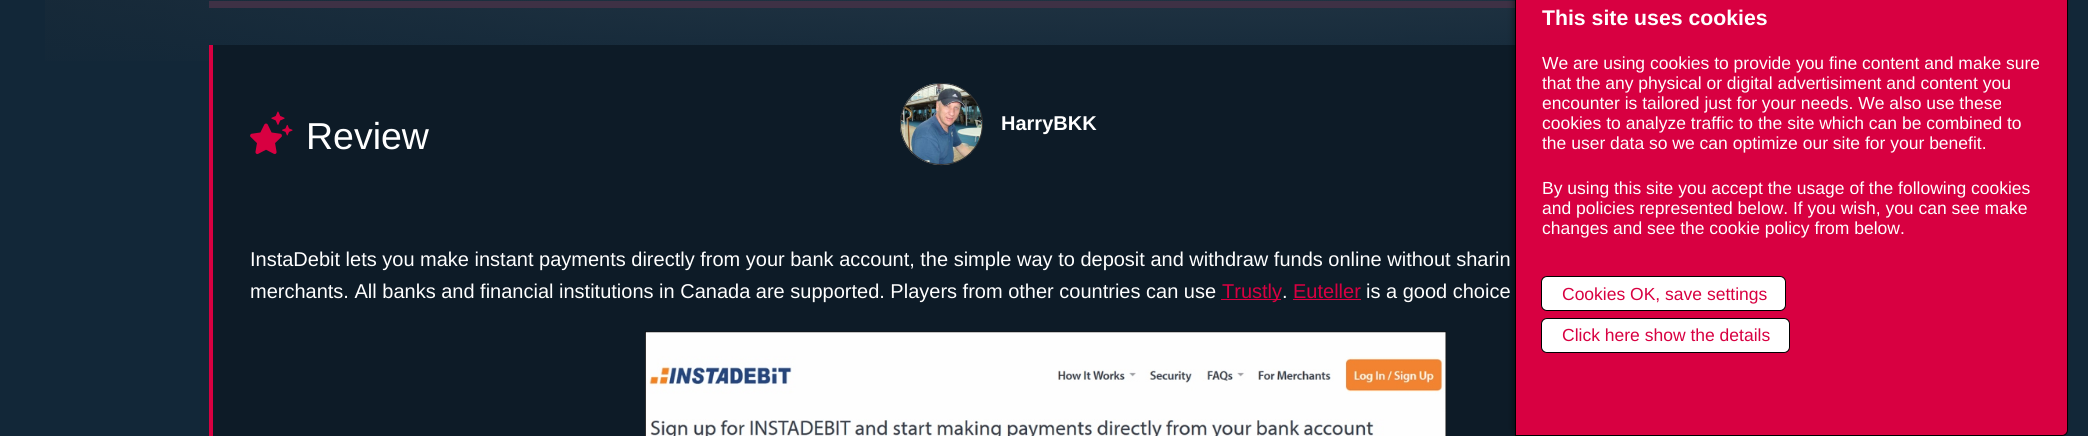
#include <cairo/cairo.h>
#include <math.h>
#include <stddef.h>

typedef struct { double x, y; const char *s; } line_t;
typedef struct { double x, y, w, h; unsigned color; } box_t;
static cairo_t *cr;

static void rgb(unsigned color)
{
	cairo_set_source_rgb(cr, (color >> 16) / 255.0, (color >> 8 & 255) / 255.0, (color & 255) / 255.0);
}

static void rrect(double x, double y, double w, double h, double r)
{
	cairo_new_sub_path(cr);
	cairo_arc(cr, x + w - r, y + h - r, r, 0, M_PI / 2);
	cairo_arc(cr, x + r, y + h - r, r, M_PI / 2, M_PI);
	cairo_arc(cr, x + r, y + r, r, M_PI, 1.5 * M_PI);
	cairo_arc(cr, x + w - r, y + r, r, 1.5 * M_PI, 2 * M_PI);
	cairo_close_path(cr);
}

static void soft_shadow(double x, double y, double w, double h, double r, double blur, double alpha)
{
	cairo_push_group_with_content(cr, CAIRO_CONTENT_ALPHA);
	cairo_set_operator(cr, CAIRO_OPERATOR_SOURCE);
	for (int i = 15; i >= -15 && fmin(w, h) + blur * i / 3 > 0; i -= 2) {
		double e = blur * i / 6;
		cairo_set_source_rgba(cr, 0, 0, 0, alpha * erfc((i - 1) / 8.5) / 2);
		rrect(x - e, y - e, w + 2 * e, h + 2 * e, fmax(0, fmin(r + e + blur * .6, fmin(w, h) / 2 + e)));
		cairo_fill(cr);
	}
	cairo_pattern_t *soft = cairo_pop_group(cr);
	cairo_mask(cr, soft);
	cairo_pattern_destroy(soft);
}

static void image(const char *path, double x, double y, double w, double h)
{
	cairo_surface_t *image = cairo_image_surface_create_from_png(path);
	cairo_save(cr);
	cairo_set_source_surface(cr, image, x, y);
	cairo_rectangle(cr, x, y, w, h);
	cairo_fill(cr);
	cairo_restore(cr);
	cairo_surface_destroy(image);
}

int main(void) {
	cairo_surface_t *surface = cairo_image_surface_create(CAIRO_FORMAT_RGB24, 2088, 436);
	cr = cairo_create(surface);
	cairo_font_options_t *options = cairo_font_options_create();
	cairo_font_options_set_hint_metrics(options, CAIRO_HINT_METRICS_OFF);
	cairo_font_options_set_hint_style(options, CAIRO_HINT_STYLE_NONE);
	cairo_set_font_options(cr, options);
	cairo_set_miter_limit(cr, 4);
	rgb(0x122738);
	cairo_paint(cr);
	image("img/1.png", 45, 0, 1470, 61);
	{
		static const box_t items[] = {
			{209, 1, 1306, 7, 0x3e3145},
			{213, 45, 1302, 391, 0x0d1b27},
			{209, 45, 4, 391, 0xd80041},
		};
		for (size_t i = 0; i < sizeof items / sizeof *items; i++) {
			rgb(items[i].color);
			cairo_rectangle(cr, items[i].x, items[i].y, items[i].w, items[i].h);
			cairo_fill(cr);
		}
	}
	image("img/2.png", 250, 111, 43, 44);
	image("img/3.png", 900, 82, 83, 84);
	rrect(900.5, 83.5, 82, 81, 40.5);
	rgb(0x333333);
	cairo_set_line_width(cr, 1);
	cairo_stroke(cr);
	rgb(0xd80041);
	cairo_rectangle(cr, 1221, 299, 60, 1);
	cairo_fill(cr);
	cairo_rectangle(cr, 1293, 299, 68, 1);
	cairo_fill(cr);
	image("img/4.png", 645, 331, 802, 105);
	rgb(0x000000);
	soft_shadow(1513, -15, 552, 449, 6, 3, 0.4);
	rgb(0xd80041);
	cairo_new_path(cr);
	cairo_move_to(cr, 1521, -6.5);
	cairo_line_to(cr, 2067.5, -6.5);
	cairo_line_to(cr, 2067.5, 430);
	cairo_curve_to(cr, 2067.5, 433, 2065, 435.5, 2062, 435.5);
	cairo_line_to(cr, 1515.5, 435.5);
	cairo_line_to(cr, 1515.5, -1);
	cairo_curve_to(cr, 1515.5, -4, 1518, -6.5, 1521, -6.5);
	cairo_close_path(cr);
	cairo_fill_preserve(cr);
	rgb(0x000000);
	cairo_stroke(cr);
	rgb(0xffffff);
	rrect(1541.5, 276.5, 244, 34, 5.5);
	cairo_fill_preserve(cr);
	rgb(0x000000);
	cairo_stroke(cr);
	rgb(0xffffff);
	rrect(1541.5, 318.5, 248, 34, 5.5);
	cairo_fill_preserve(cr);
	rgb(0x000000);
	cairo_stroke(cr);
	cairo_select_font_face(cr, "Liberation Sans", CAIRO_FONT_SLANT_NORMAL, CAIRO_FONT_WEIGHT_NORMAL);
	cairo_set_font_size(cr, 37.5);
	rgb(0xffffff);
	cairo_move_to(cr, 306, 149);
	cairo_show_text(cr, "Review");
	cairo_select_font_face(cr, "Liberation Sans", CAIRO_FONT_SLANT_NORMAL, CAIRO_FONT_WEIGHT_BOLD);
	cairo_set_font_size(cr, 20);
	cairo_move_to(cr, 1001, 130);
	cairo_show_text(cr, "HarryBKK");
	cairo_select_font_face(cr, "Liberation Sans", CAIRO_FONT_SLANT_NORMAL, CAIRO_FONT_WEIGHT_NORMAL);
	cairo_move_to(cr, 250, 266);
	cairo_show_text(cr, "InstaDebit lets you make instant payments directly from your bank account, the simple way to deposit and withdraw funds online without sharin");
	cairo_move_to(cr, 250, 298);
	cairo_show_text(cr, "merchants. All banks and financial institutions in Canada are supported. Players from other countries can use");
	rgb(0xd80041);
	cairo_move_to(cr, 1222, 298);
	cairo_show_text(cr, "Trustly");
	rgb(0xffffff);
	cairo_move_to(cr, 1282, 298);
	cairo_show_text(cr, ".");
	rgb(0xd80041);
	cairo_move_to(cr, 1293, 298);
	cairo_show_text(cr, "Euteller");
	rgb(0xffffff);
	cairo_move_to(cr, 1366, 298);
	cairo_show_text(cr, "is a good choice");
	cairo_select_font_face(cr, "Liberation Sans", CAIRO_FONT_SLANT_NORMAL, CAIRO_FONT_WEIGHT_BOLD);
	cairo_set_font_size(cr, 21.25);
	cairo_move_to(cr, 1542, 25);
	cairo_show_text(cr, "This site uses cookies");
	cairo_select_font_face(cr, "Liberation Sans", CAIRO_FONT_SLANT_NORMAL, CAIRO_FONT_WEIGHT_NORMAL);
	cairo_set_font_size(cr, 17.5);
	{
		static const line_t items[] = {
			{1542, 69, "We are using cookies to provide you fine content and make sure"},
			{1542, 89, "that the any physical or digital advertisiment and content you"},
			{1542, 109, "encounter is tailored just for your needs. We also use these"},
			{1542, 129, "cookies to analyze traffic to the site which can be combined to"},
			{1542, 149, "the user data so we can optimize our site for your benefit."},
			{1542, 194, "By using this site you accept the usage of the following cookies"},
			{1542, 214, "and policies represented below. If you wish, you can see make"},
			{1542, 234, "changes and see the cookie policy from below."},
		};
		for (size_t i = 0; i < sizeof items / sizeof *items; i++) {
			cairo_move_to(cr, items[i].x, items[i].y);
			cairo_show_text(cr, items[i].s);
		}
	}
	rgb(0xd80041);
	cairo_move_to(cr, 1562, 300);
	cairo_show_text(cr, "Cookies OK, save settings");
	cairo_move_to(cr, 1562, 341);
	cairo_show_text(cr, "Click here show the details");
	cairo_surface_write_to_png(surface, "page.png");
	cairo_font_options_destroy(options);
	cairo_destroy(cr);
	cairo_surface_destroy(surface);
	return 0;
}
